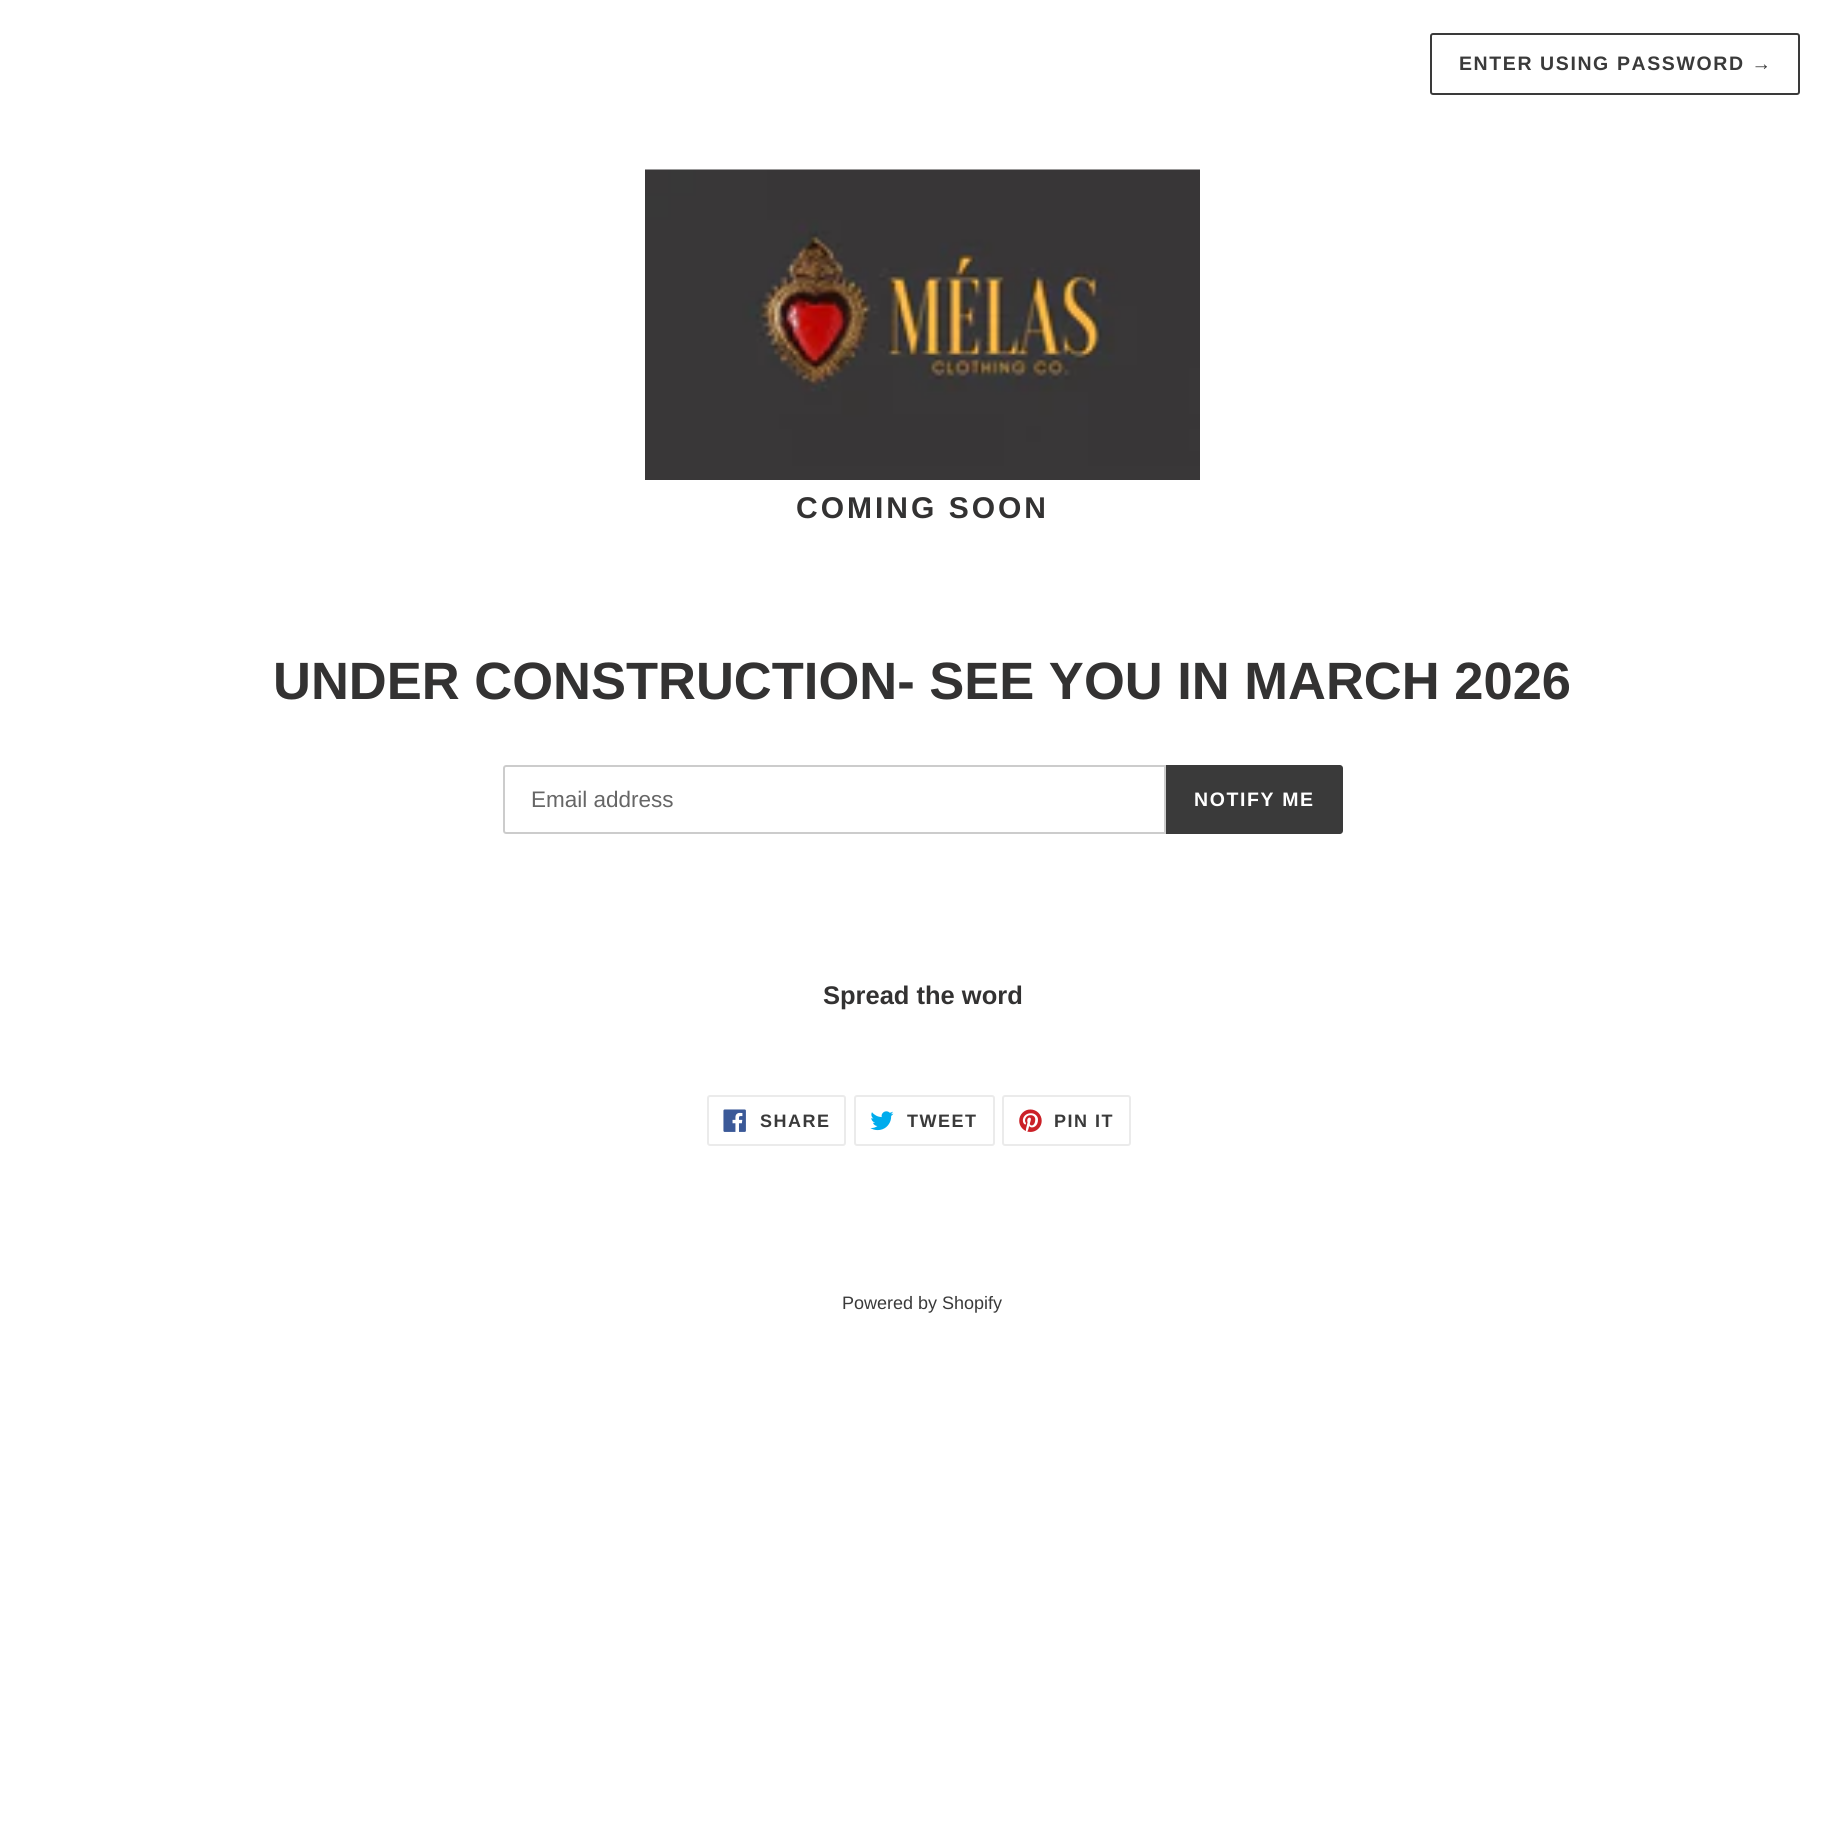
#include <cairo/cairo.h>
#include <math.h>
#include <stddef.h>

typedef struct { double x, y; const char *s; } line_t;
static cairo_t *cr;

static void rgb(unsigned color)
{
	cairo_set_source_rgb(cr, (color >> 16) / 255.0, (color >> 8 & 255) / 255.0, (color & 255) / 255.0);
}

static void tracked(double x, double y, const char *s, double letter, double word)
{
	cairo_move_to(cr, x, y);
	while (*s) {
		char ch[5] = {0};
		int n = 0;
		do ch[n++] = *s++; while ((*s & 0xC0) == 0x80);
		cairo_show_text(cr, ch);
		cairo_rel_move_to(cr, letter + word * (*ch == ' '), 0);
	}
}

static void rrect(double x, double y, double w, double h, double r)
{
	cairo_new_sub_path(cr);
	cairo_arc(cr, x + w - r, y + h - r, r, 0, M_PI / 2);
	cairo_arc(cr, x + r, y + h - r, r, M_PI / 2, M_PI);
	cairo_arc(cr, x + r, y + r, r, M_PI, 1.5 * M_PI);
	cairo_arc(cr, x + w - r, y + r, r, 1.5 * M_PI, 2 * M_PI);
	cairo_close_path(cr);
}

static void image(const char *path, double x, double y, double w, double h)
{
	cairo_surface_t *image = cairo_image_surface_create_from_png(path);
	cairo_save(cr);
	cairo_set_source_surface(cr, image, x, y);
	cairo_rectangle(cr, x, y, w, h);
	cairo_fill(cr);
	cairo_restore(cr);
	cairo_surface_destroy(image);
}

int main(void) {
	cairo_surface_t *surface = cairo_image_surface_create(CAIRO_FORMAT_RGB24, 1845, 1835);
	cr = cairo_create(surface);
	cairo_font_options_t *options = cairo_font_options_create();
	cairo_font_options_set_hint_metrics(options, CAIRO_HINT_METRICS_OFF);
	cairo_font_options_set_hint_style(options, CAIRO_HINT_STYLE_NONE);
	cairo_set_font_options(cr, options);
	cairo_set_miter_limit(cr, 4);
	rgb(0xffffff);
	cairo_paint(cr);
	rrect(1431, 34, 368, 60, 2);
	rgb(0x3a3a3a);
	cairo_stroke(cr);
	image("img/1.png", 645, 169, 555, 311);
	cairo_new_path(cr);
	cairo_move_to(cr, 506, 766);
	cairo_line_to(cr, 1165, 766);
	cairo_line_to(cr, 1165, 833);
	cairo_line_to(cr, 506, 833);
	cairo_curve_to(cr, 505, 833, 504, 832, 504, 831);
	cairo_line_to(cr, 504, 768);
	cairo_curve_to(cr, 504, 767, 505, 766, 506, 766);
	cairo_close_path(cr);
	rgb(0xcccccc);
	cairo_stroke(cr);
	rgb(0x3a3a3a);
	cairo_new_path(cr);
	cairo_move_to(cr, 1166, 765);
	cairo_line_to(cr, 1340, 765);
	cairo_curve_to(cr, 1341.5, 765, 1343, 766.5, 1343, 768);
	cairo_line_to(cr, 1343, 831);
	cairo_curve_to(cr, 1343, 832.5, 1341.5, 834, 1340, 834);
	cairo_line_to(cr, 1166, 834);
	cairo_close_path(cr);
	cairo_fill(cr);
	rrect(708, 1096, 137, 49, 2);
	rgb(0xebebeb);
	cairo_stroke(cr);
	image("img/2.png", 723, 1109, 23, 23);
	rrect(855, 1096, 139, 49, 2);
	cairo_stroke(cr);
	image("img/3.png", 870, 1111, 24, 20);
	rrect(1003, 1096, 127, 49, 2);
	cairo_stroke(cr);
	image("img/4.png", 1019, 1109, 23, 23);
	cairo_select_font_face(cr, "Liberation Sans", CAIRO_FONT_SLANT_NORMAL, CAIRO_FONT_WEIGHT_BOLD);
	cairo_set_font_size(cr, 19.5);
	rgb(0x3a3a3a);
	tracked(1459, 70, "ENTER USING PASSWORD →", 1.6, 0);
	cairo_set_font_size(cr, 30);
	rgb(0x333232);
	tracked(796, 518, "COMING SOON", 3, 0);
	cairo_set_font_size(cr, 52.5);
	cairo_move_to(cr, 273, 699);
	cairo_show_text(cr, "UNDER CONSTRUCTION- SEE YOU IN MARCH 2026");
	cairo_select_font_face(cr, "Liberation Sans", CAIRO_FONT_SLANT_NORMAL, CAIRO_FONT_WEIGHT_NORMAL);
	cairo_set_font_size(cr, 22.5);
	rgb(0x666666);
	cairo_move_to(cr, 531, 807);
	cairo_show_text(cr, "Email address");
	cairo_select_font_face(cr, "Liberation Sans", CAIRO_FONT_SLANT_NORMAL, CAIRO_FONT_WEIGHT_BOLD);
	cairo_set_font_size(cr, 19.5);
	rgb(0xffffff);
	tracked(1194, 806, "NOTIFY ME", 1.6, 0);
	cairo_set_font_size(cr, 25.5);
	rgb(0x333232);
	cairo_move_to(cr, 823, 1004);
	cairo_show_text(cr, "Spread the word");
	cairo_set_font_size(cr, 18);
	rgb(0x3a3a3a);
	{
		static const line_t items[] = {
			{760, 1127, "SHARE"},
			{907, 1127, "TWEET"},
			{1054, 1127, "PIN IT"},
		};
		for (size_t i = 0; i < sizeof items / sizeof *items; i++) {
			tracked(items[i].x, items[i].y, items[i].s, 1.5, 0);
		}
	}
	cairo_select_font_face(cr, "Liberation Sans", CAIRO_FONT_SLANT_NORMAL, CAIRO_FONT_WEIGHT_NORMAL);
	cairo_move_to(cr, 842, 1309);
	cairo_show_text(cr, "Powered by Shopify");
	cairo_surface_write_to_png(surface, "page.png");
	cairo_font_options_destroy(options);
	cairo_destroy(cr);
	cairo_surface_destroy(surface);
	return 0;
}
